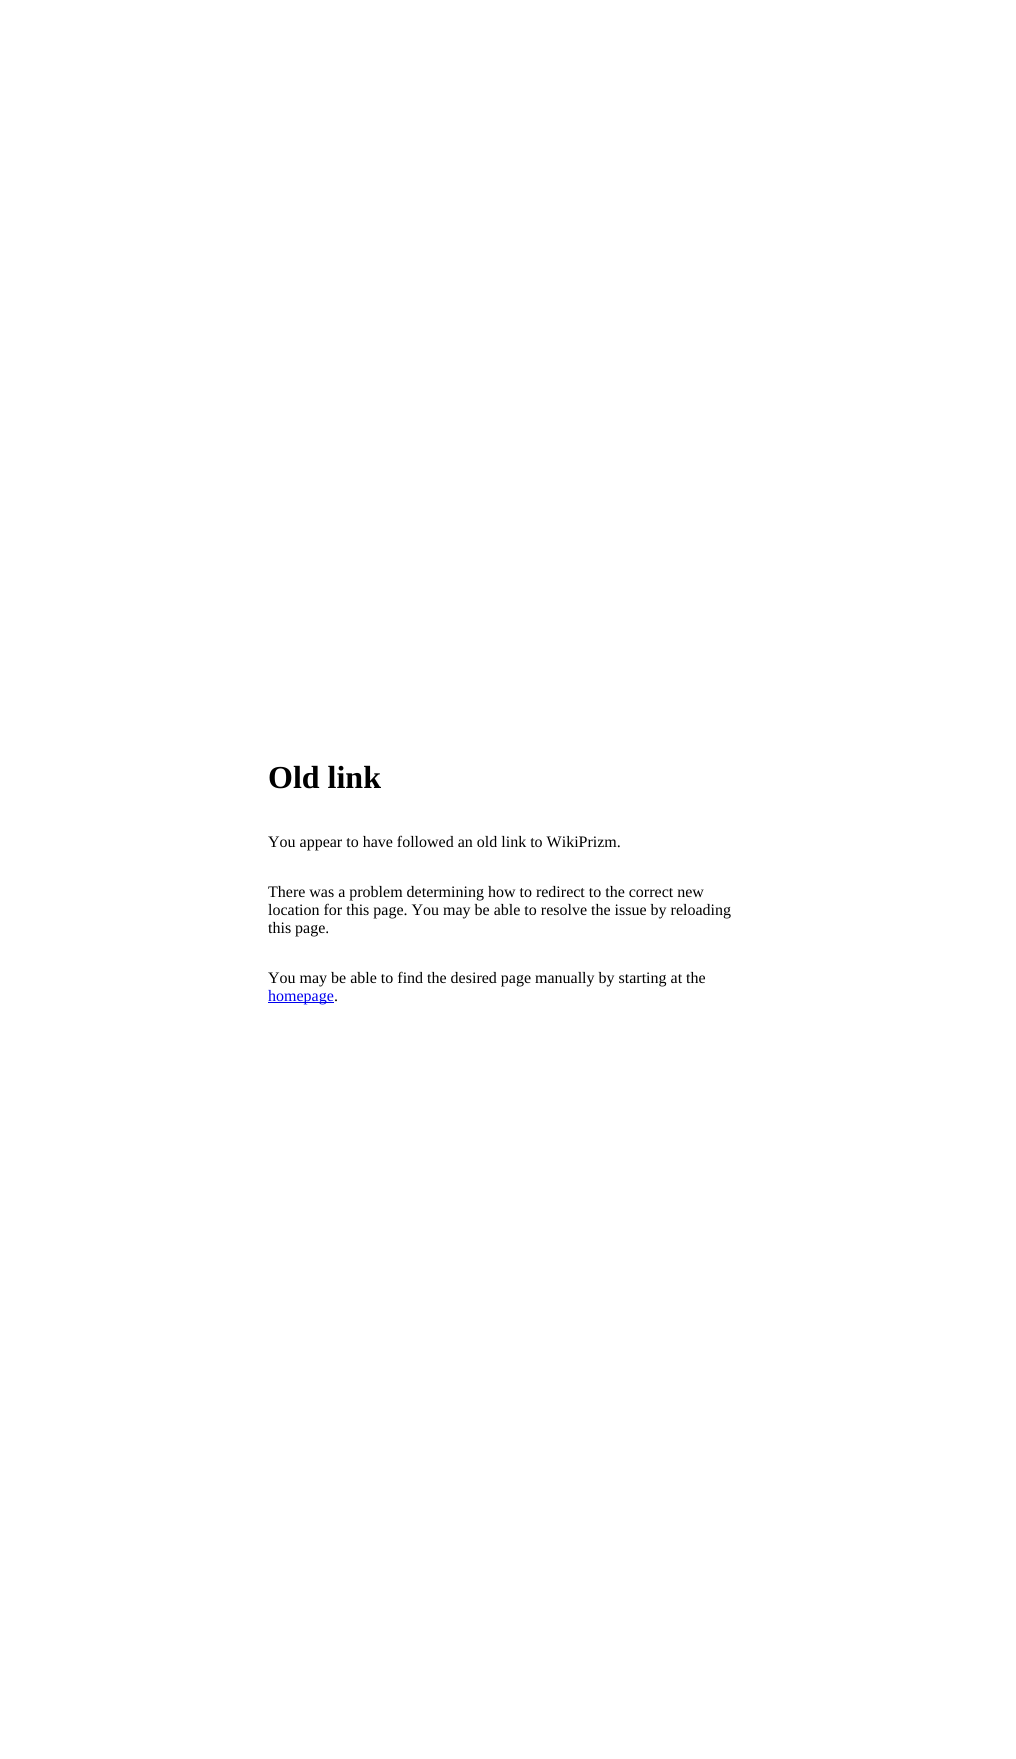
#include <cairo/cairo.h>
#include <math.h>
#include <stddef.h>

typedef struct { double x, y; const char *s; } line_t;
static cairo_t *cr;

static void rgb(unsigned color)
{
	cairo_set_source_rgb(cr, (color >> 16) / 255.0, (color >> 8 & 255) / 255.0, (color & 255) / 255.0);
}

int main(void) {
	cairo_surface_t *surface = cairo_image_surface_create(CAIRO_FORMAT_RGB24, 1016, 1759);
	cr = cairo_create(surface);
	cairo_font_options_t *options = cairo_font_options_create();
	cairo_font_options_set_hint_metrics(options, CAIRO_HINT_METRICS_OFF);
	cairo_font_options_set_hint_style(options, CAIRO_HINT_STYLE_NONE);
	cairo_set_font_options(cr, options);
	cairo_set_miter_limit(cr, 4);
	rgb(0xffffff);
	cairo_paint(cr);
	rgb(0x0000ee);
	cairo_rectangle(cr, 268, 1002, 66, 1);
	cairo_fill(cr);
	cairo_select_font_face(cr, "Liberation Serif", CAIRO_FONT_SLANT_NORMAL, CAIRO_FONT_WEIGHT_BOLD);
	cairo_set_font_size(cr, 32);
	rgb(0x000000);
	cairo_move_to(cr, 268, 788);
	cairo_show_text(cr, "Old link");
	cairo_select_font_face(cr, "Liberation Serif", CAIRO_FONT_SLANT_NORMAL, CAIRO_FONT_WEIGHT_NORMAL);
	cairo_set_font_size(cr, 16);
	{
		static const line_t items[] = {
			{268, 847, "You appear to have followed an old link to WikiPrizm."},
			{268, 897, "There was a problem determining how to redirect to the correct new"},
			{268, 915, "location for this page. You may be able to resolve the issue by reloading"},
			{268, 933, "this page."},
			{268, 983, "You may be able to find the desired page manually by starting at the"},
		};
		for (size_t i = 0; i < sizeof items / sizeof *items; i++) {
			cairo_move_to(cr, items[i].x, items[i].y);
			cairo_show_text(cr, items[i].s);
		}
	}
	rgb(0x0000ee);
	cairo_move_to(cr, 268, 1001);
	cairo_show_text(cr, "homepage");
	rgb(0x000000);
	cairo_move_to(cr, 334, 1001);
	cairo_show_text(cr, ".");
	cairo_surface_write_to_png(surface, "page.png");
	cairo_font_options_destroy(options);
	cairo_destroy(cr);
	cairo_surface_destroy(surface);
	return 0;
}
